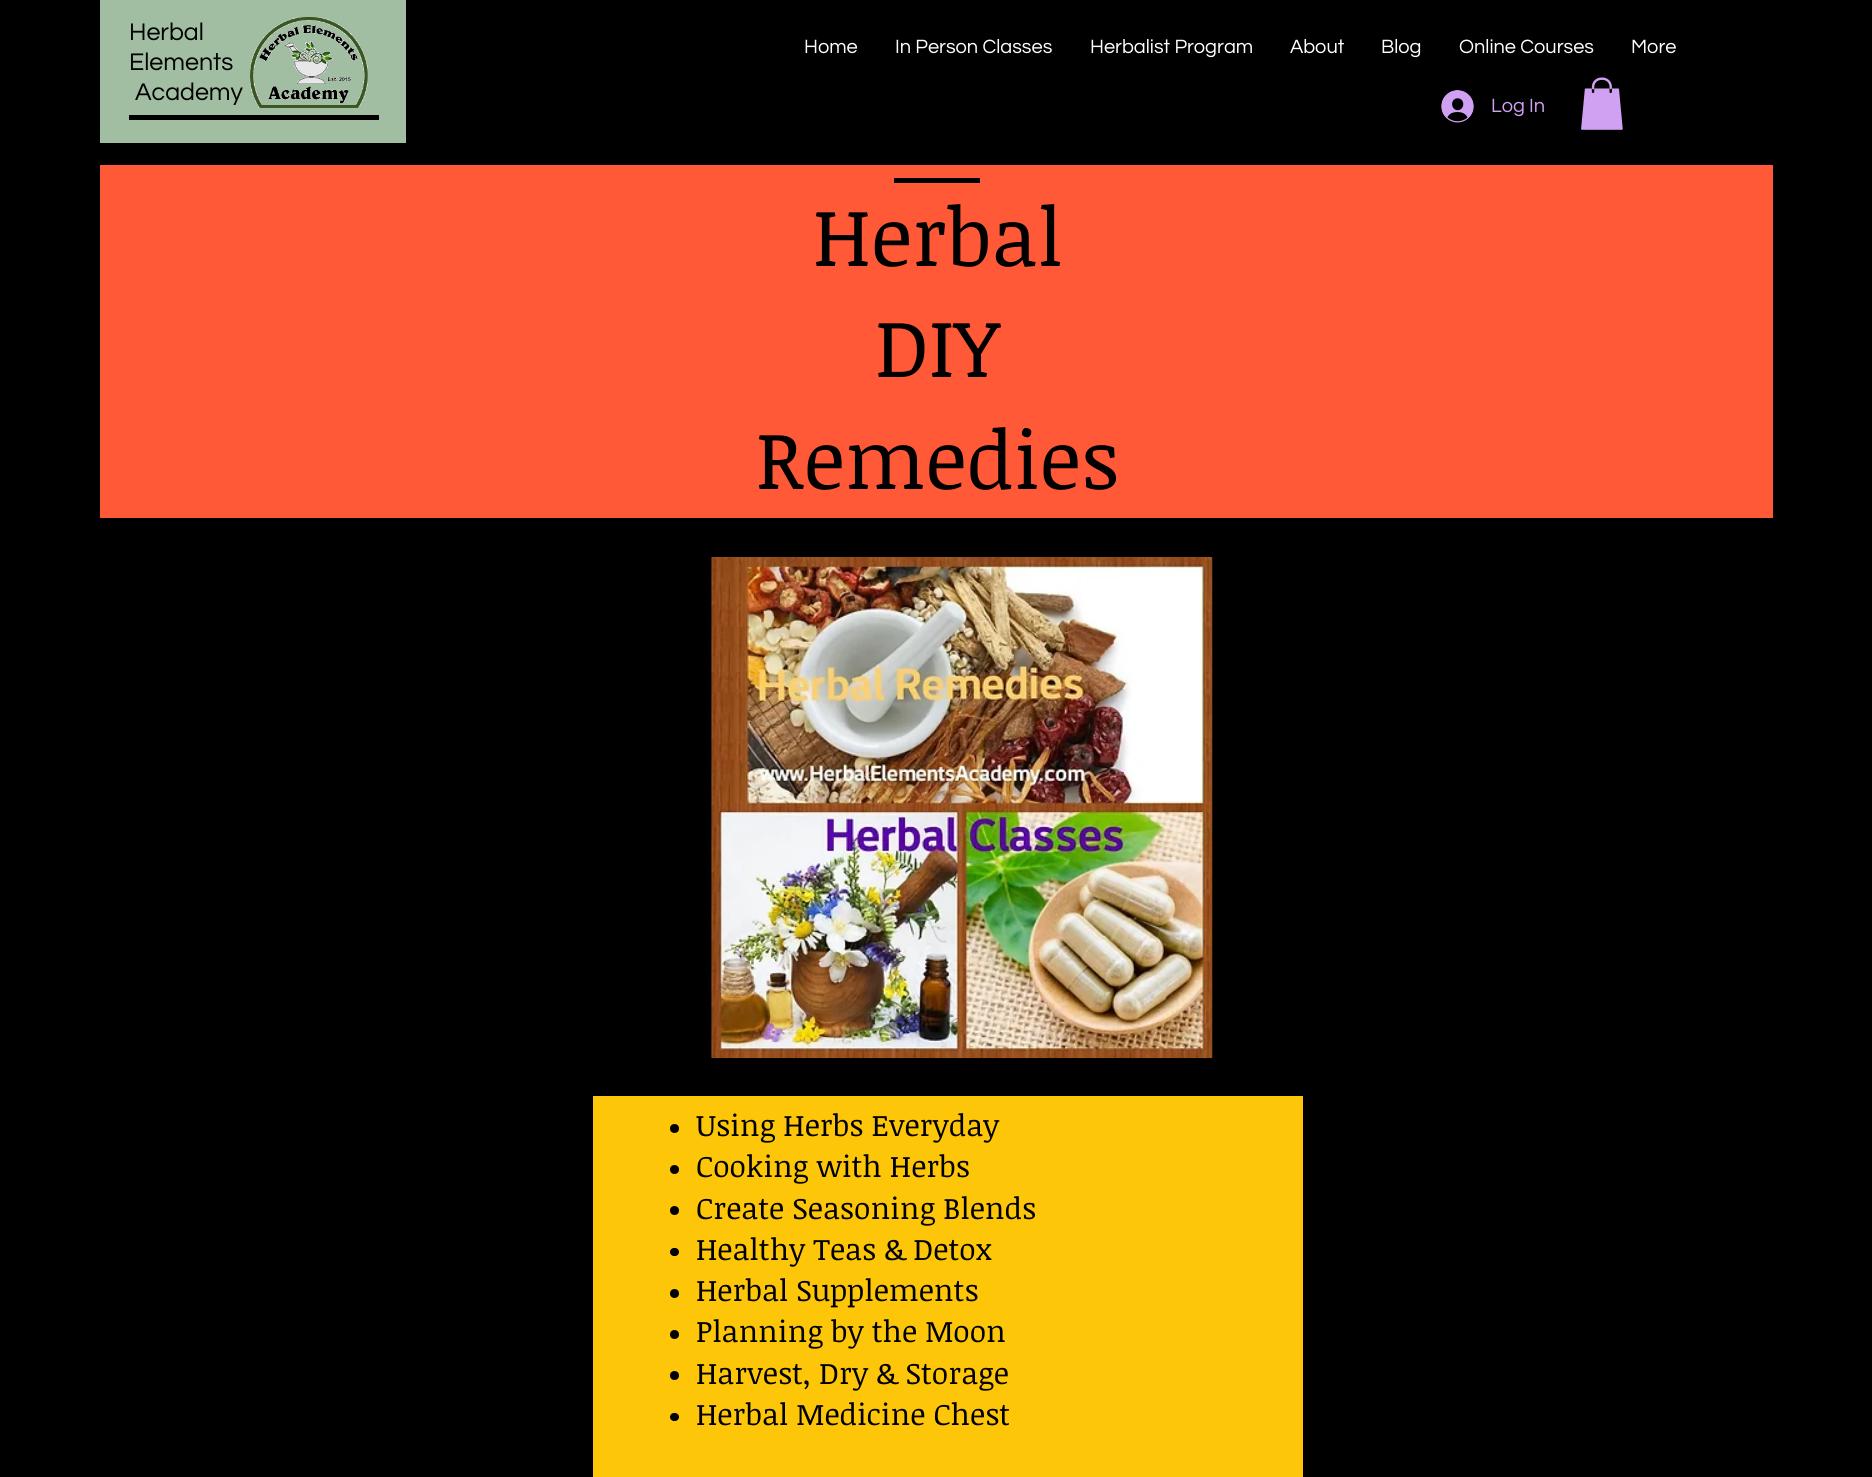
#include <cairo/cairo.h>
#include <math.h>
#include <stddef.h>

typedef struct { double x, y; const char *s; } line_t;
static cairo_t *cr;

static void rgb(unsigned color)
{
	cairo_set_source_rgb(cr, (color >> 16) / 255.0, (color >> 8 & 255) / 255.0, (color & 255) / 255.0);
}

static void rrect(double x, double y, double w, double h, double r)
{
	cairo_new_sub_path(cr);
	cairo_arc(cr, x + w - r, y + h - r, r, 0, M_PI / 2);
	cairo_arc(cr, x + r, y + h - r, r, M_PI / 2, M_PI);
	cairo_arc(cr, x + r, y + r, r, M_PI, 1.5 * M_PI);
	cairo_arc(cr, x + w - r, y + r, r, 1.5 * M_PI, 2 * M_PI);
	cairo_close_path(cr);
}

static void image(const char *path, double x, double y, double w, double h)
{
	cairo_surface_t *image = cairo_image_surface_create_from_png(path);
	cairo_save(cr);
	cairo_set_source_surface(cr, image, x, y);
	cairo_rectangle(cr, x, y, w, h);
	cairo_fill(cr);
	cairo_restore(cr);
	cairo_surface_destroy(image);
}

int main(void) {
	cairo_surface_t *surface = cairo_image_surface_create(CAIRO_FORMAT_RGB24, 1872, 1477);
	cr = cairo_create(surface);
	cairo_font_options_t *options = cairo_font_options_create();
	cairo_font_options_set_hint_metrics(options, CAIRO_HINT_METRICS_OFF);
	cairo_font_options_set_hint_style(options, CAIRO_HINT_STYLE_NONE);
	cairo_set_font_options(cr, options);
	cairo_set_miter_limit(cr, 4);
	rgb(0x000000);
	cairo_paint(cr);
	rgb(0xa1bea2);
	cairo_rectangle(cr, 100, 0, 306, 143);
	cairo_fill(cr);
	image("img/1.png", 250, 17, 118, 91);
	rgb(0x000000);
	cairo_rectangle(cr, 129, 115, 250, 5);
	cairo_fill(cr);
	image("img/2.png", 1441, 90, 33, 33);
	image("img/3.png", 1581, 77, 42, 53);
	rgb(0xff5937);
	cairo_rectangle(cr, 100, 165, 1673, 353);
	cairo_fill(cr);
	rgb(0x000000);
	cairo_rectangle(cr, 894, 178, 86, 5);
	cairo_fill(cr);
	image("img/4.png", 711, 557, 502, 502);
	rgb(0xfdc609);
	cairo_rectangle(cr, 593, 1096, 710, 381);
	cairo_fill(cr);
	rgb(0x000000);
	cairo_arc(cr, 674.5, 1128.5, 4.5, 0, 2 * M_PI);
	cairo_fill(cr);
	cairo_arc(cr, 674.5, 1169.5, 4.5, 0, 2 * M_PI);
	cairo_fill(cr);
	cairo_arc(cr, 674.5, 1210.5, 4.5, 0, 2 * M_PI);
	cairo_fill(cr);
	rrect(670, 1248, 9, 8, 4);
	cairo_fill(cr);
	cairo_arc(cr, 674.5, 1293.5, 4.5, 0, 2 * M_PI);
	cairo_fill(cr);
	cairo_arc(cr, 674.5, 1334.5, 4.5, 0, 2 * M_PI);
	cairo_fill(cr);
	cairo_arc(cr, 674.5, 1375.5, 4.5, 0, 2 * M_PI);
	cairo_fill(cr);
	rrect(670, 1413, 9, 8, 4);
	cairo_fill(cr);
	cairo_select_font_face(cr, "Questrial", CAIRO_FONT_SLANT_NORMAL, CAIRO_FONT_WEIGHT_NORMAL);
	cairo_set_font_size(cr, 25);
	{
		static const line_t items[] = {
			{129, 40, "Herbal"},
			{129, 70, "Elements"},
			{135, 100, "Academy"},
		};
		for (size_t i = 0; i < sizeof items / sizeof *items; i++) {
			cairo_move_to(cr, items[i].x, items[i].y);
			cairo_show_text(cr, items[i].s);
		}
	}
	cairo_set_font_size(cr, 20);
	rgb(0xffffff);
	{
		static const line_t items[] = {
			{804, 53, "Home"},
			{895, 53, "In Person Classes"},
			{1090, 53, "Herbalist Program"},
			{1290, 53, "About"},
			{1381, 53, "Blog"},
			{1459, 53, "Online Courses"},
			{1631, 53, "More"},
		};
		for (size_t i = 0; i < sizeof items / sizeof *items; i++) {
			cairo_move_to(cr, items[i].x, items[i].y);
			cairo_show_text(cr, items[i].s);
		}
	}
	rgb(0xd0a1f2);
	cairo_move_to(cr, 1491, 112);
	cairo_show_text(cr, "Log In");
	cairo_select_font_face(cr, "Noticia Text", CAIRO_FONT_SLANT_NORMAL, CAIRO_FONT_WEIGHT_NORMAL);
	cairo_set_font_size(cr, 81.25);
	rgb(0x000000);
	{
		static const line_t items[] = {
			{813, 266, "Herbal"},
			{875, 377, "DIY"},
			{756, 489, "Remedies"},
		};
		for (size_t i = 0; i < sizeof items / sizeof *items; i++) {
			cairo_move_to(cr, items[i].x, items[i].y);
			cairo_show_text(cr, items[i].s);
		}
	}
	cairo_set_font_size(cr, 30);
	{
		static const line_t items[] = {
			{696, 1136, "Using Herbs Everyday"},
			{696, 1177, "Cooking with Herbs"},
			{696, 1219, "Create Seasoning Blends"},
			{696, 1260, "Healthy Teas & Detox"},
			{696, 1301, "Herbal Supplements"},
			{696, 1342, "Planning by the Moon"},
			{696, 1384, "Harvest, Dry & Storage"},
			{696, 1425, "Herbal Medicine Chest"},
		};
		for (size_t i = 0; i < sizeof items / sizeof *items; i++) {
			cairo_move_to(cr, items[i].x, items[i].y);
			cairo_show_text(cr, items[i].s);
		}
	}
	cairo_surface_write_to_png(surface, "page.png");
	cairo_font_options_destroy(options);
	cairo_destroy(cr);
	cairo_surface_destroy(surface);
	return 0;
}
